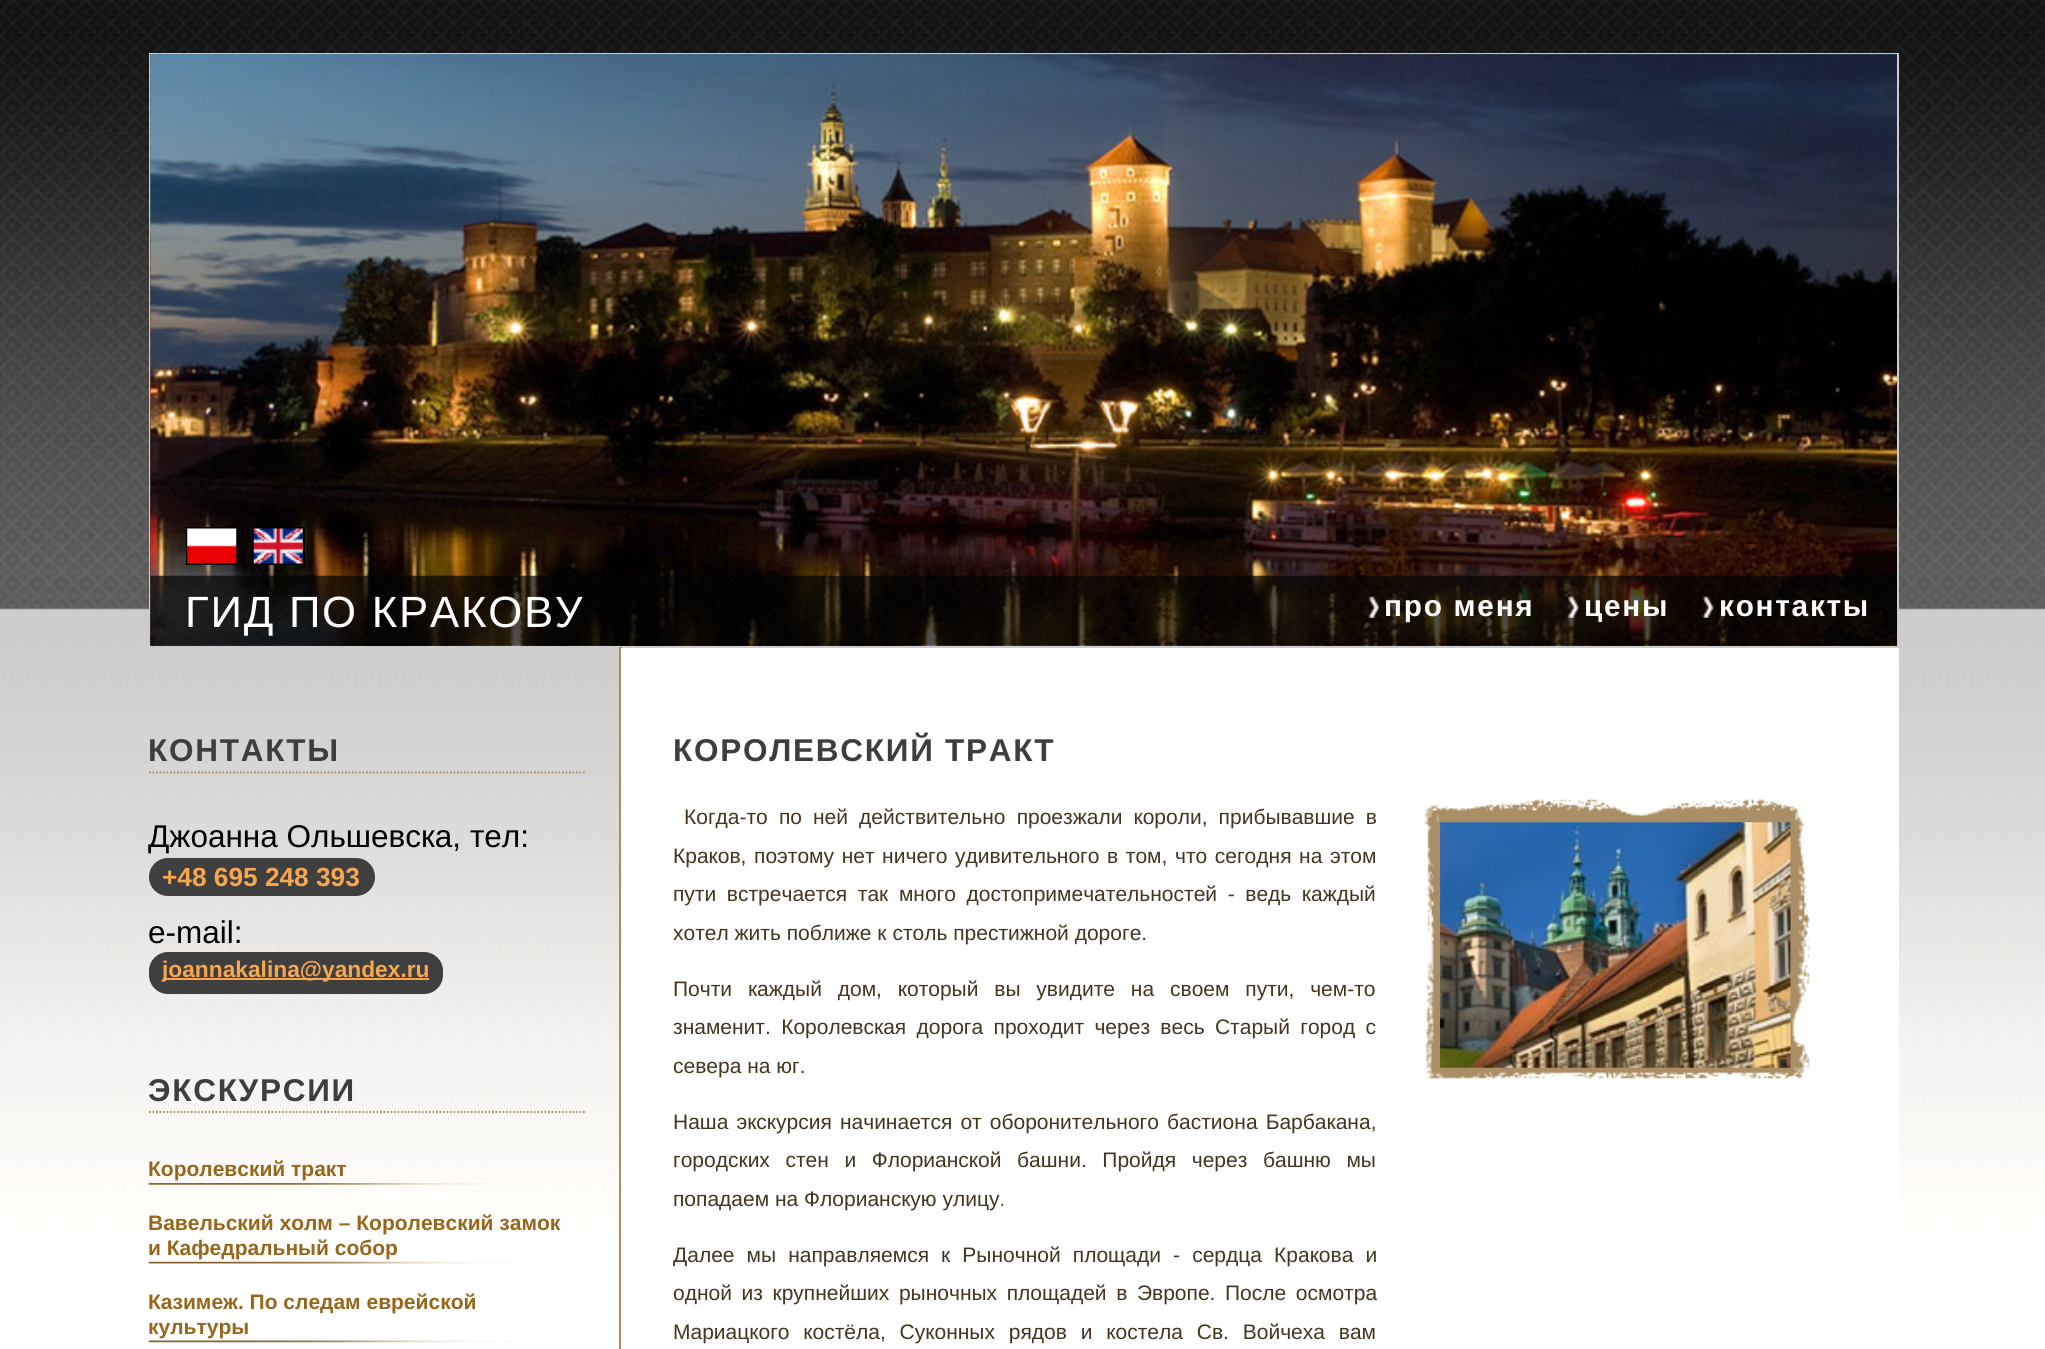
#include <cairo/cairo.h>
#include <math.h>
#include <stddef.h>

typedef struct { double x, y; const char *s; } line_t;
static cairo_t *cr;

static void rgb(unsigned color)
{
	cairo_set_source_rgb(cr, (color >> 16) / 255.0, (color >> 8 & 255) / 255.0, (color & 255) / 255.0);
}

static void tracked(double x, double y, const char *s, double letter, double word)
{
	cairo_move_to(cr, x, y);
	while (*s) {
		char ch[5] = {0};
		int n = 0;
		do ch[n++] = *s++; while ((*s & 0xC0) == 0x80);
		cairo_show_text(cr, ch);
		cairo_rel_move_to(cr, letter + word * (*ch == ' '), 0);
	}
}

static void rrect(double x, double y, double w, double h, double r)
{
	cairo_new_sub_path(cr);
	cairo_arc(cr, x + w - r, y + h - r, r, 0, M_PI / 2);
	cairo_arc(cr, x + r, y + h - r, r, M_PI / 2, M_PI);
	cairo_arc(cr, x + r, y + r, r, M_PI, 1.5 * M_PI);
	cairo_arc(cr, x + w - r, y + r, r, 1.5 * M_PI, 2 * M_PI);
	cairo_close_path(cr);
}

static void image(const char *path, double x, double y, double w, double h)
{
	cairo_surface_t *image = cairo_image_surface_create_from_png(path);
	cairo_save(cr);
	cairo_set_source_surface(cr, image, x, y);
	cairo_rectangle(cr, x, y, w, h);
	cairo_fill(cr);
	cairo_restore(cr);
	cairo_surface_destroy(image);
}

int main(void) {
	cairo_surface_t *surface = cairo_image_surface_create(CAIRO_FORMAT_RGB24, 2045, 1349);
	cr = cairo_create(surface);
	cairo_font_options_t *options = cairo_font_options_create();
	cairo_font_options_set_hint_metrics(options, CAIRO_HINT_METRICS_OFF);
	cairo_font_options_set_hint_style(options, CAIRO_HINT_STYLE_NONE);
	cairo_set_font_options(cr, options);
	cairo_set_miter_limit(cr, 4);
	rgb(0xffffff);
	cairo_paint(cr);
	image("img/1.png", 0, 0, 2045, 1231);
	cairo_rectangle(cr, 150, 54, 1748, 593);
	rgb(0xcdcccc);
	cairo_stroke(cr);
	image("img/2.png", 150, 54, 1747, 592);
	image("img/3.png", 150, 54, 1747, 592);
	image("img/4.png", 150, 54, 1747, 592);
	image("img/5.png", 150, 54, 1747, 592);
	cairo_rectangle(cr, 187, 528, 50, 36);
	rgb(0x000000);
	cairo_stroke(cr);
	cairo_rectangle(cr, 253, 528, 51, 36);
	cairo_stroke(cr);
	image("img/6.png", 187, 528, 50, 36);
	image("img/7.png", 253, 528, 50, 36);
	image("img/8.png", 150, 575, 1747, 71);
	image("img/9.png", 1368, 596, 11, 22);
	image("img/10.png", 1568, 596, 11, 22);
	image("img/11.png", 1702, 596, 12, 22);
	rgb(0xaa8c62);
	cairo_rectangle(cr, 619, 647, 3, 702);
	cairo_fill(cr);
	cairo_new_path(cr);
	cairo_move_to(cr, 149, 772.5);
	cairo_line_to(cr, 586, 772.5);
	cairo_set_line_width(cr, 1.8);
	cairo_set_dash(cr, (double[]){1.75, 1.75}, 2, 0);
	cairo_stroke(cr);
	rgb(0x3f3f3f);
	rrect(150, 859, 224, 36, 18);
	cairo_fill_preserve(cr);
	cairo_set_line_width(cr, 2);
	cairo_set_dash(cr, NULL, 0, 0);
	cairo_stroke(cr);
	rrect(150, 953, 292, 40, 18);
	cairo_fill_preserve(cr);
	cairo_stroke(cr);
	rgb(0xf9a74e);
	cairo_rectangle(cr, 163, 978, 266, 2);
	cairo_fill(cr);
	cairo_new_path(cr);
	cairo_move_to(cr, 149, 1112);
	cairo_line_to(cr, 586, 1112);
	rgb(0xaa8c62);
	cairo_set_line_width(cr, 1.8);
	cairo_set_dash(cr, (double[]){1.75, 1.75}, 2, 0);
	cairo_stroke(cr);
	image("img/12.png", 148, 1183, 387, 2);
	image("img/13.png", 148, 1261, 387, 3);
	image("img/14.png", 148, 1340, 387, 3);
	rgb(0xffffff);
	cairo_rectangle(cr, 621, 648, 1278, 701);
	cairo_fill(cr);
	image("img/15.png", 1424, 799, 386, 280);
	image("img/16.png", 1440, 822, 351, 246);
	cairo_select_font_face(cr, "Liberation Sans", CAIRO_FONT_SLANT_NORMAL, CAIRO_FONT_WEIGHT_NORMAL);
	cairo_set_font_size(cr, 43.75);
	tracked(185, 627, "ГИД ПО КРАКОВУ", 1.75, 0);
	cairo_select_font_face(cr, "Liberation Sans", CAIRO_FONT_SLANT_NORMAL, CAIRO_FONT_WEIGHT_BOLD);
	cairo_set_font_size(cr, 29.75);
	{
		static const line_t items[] = {
			{1384, 616, "про меня"},
			{1584, 616, "цены"},
			{1719, 616, "контакты"},
		};
		for (size_t i = 0; i < sizeof items / sizeof *items; i++) {
			tracked(items[i].x, items[i].y, items[i].s, 1.75, 0);
		}
	}
	cairo_set_font_size(cr, 31.5);
	rgb(0x3e3e3e);
	tracked(148, 761, "КОНТАКТЫ", 1.75, 0);
	cairo_select_font_face(cr, "Liberation Sans", CAIRO_FONT_SLANT_NORMAL, CAIRO_FONT_WEIGHT_NORMAL);
	rgb(0x000000);
	cairo_move_to(cr, 148, 847);
	cairo_show_text(cr, "Джоанна Ольшевскa, тел:");
	cairo_select_font_face(cr, "Liberation Sans", CAIRO_FONT_SLANT_NORMAL, CAIRO_FONT_WEIGHT_BOLD);
	cairo_set_font_size(cr, 26.25);
	rgb(0xf9a74e);
	cairo_move_to(cr, 162, 886);
	cairo_show_text(cr, "+48 695 248 393");
	cairo_select_font_face(cr, "Liberation Sans", CAIRO_FONT_SLANT_NORMAL, CAIRO_FONT_WEIGHT_NORMAL);
	cairo_set_font_size(cr, 31.5);
	rgb(0x000000);
	cairo_move_to(cr, 148, 943);
	cairo_show_text(cr, "e-mail:");
	cairo_select_font_face(cr, "Liberation Sans", CAIRO_FONT_SLANT_NORMAL, CAIRO_FONT_WEIGHT_BOLD);
	cairo_set_font_size(cr, 22.75);
	rgb(0xf9a74e);
	cairo_move_to(cr, 162, 977);
	cairo_show_text(cr, "joannakalina@yandex.ru");
	cairo_set_font_size(cr, 31.5);
	rgb(0x3e3e3e);
	tracked(148, 1101, "ЭКСКУРСИИ", 1.75, 0);
	cairo_set_font_size(cr, 21);
	rgb(0x98661b);
	{
		static const line_t items[] = {
			{148, 1176, "Королевский тракт"},
			{148, 1230, "Вавельский холм – Королевский замок"},
			{148, 1255, "и Кафедральный собор"},
			{148, 1309, "Казимеж. По следам еврейской"},
			{148, 1334, "культуры"},
		};
		for (size_t i = 0; i < sizeof items / sizeof *items; i++) {
			cairo_move_to(cr, items[i].x, items[i].y);
			cairo_show_text(cr, items[i].s);
		}
	}
	cairo_set_font_size(cr, 31.5);
	rgb(0x3e3e3e);
	tracked(673, 761, "КОРОЛЕВСКИЙ ТРАКТ", 1.75, 0);
	cairo_select_font_face(cr, "Liberation Sans", CAIRO_FONT_SLANT_NORMAL, CAIRO_FONT_WEIGHT_NORMAL);
	cairo_set_font_size(cr, 21);
	rgb(0x423521);
	tracked(684, 824, "Когда-то по ней действительно проезжали короли, прибывавшие в", 0, 5.25);
	tracked(673, 863, "Краков, поэтому нет ничего удивительного в том, что сегодня на этом", 0, 1.75);
	tracked(673, 901, "пути встречается так много достопримечательностей - ведь каждый", 0, 4.75);
	cairo_move_to(cr, 673, 940);
	cairo_show_text(cr, "хотел жить поближе к столь престижной дороге.");
	tracked(673, 996, "Почти каждый дом, который вы увидите на своем пути, чем-то", 0, 10);
	tracked(673, 1034, "знаменит. Королевская дорога проходит через весь Старый город с", 0, 4.5);
	cairo_move_to(cr, 673, 1073);
	cairo_show_text(cr, "севера на юг.");
	tracked(673, 1129, "Наша экскурсия начинается от оборонительного бастиона Барбакана,", 0, 2.25);
	tracked(673, 1167, "городских стен и Флорианской башни. Пройдя через башню мы", 0, 9.75);
	cairo_move_to(cr, 673, 1206);
	cairo_show_text(cr, "попадаем на Флорианскую улицу.");
	tracked(673, 1262, "Далее мы направляемся к Рыночной площади - сердца Кракова и", 0, 6.25);
	tracked(673, 1300, "одной из крупнейших рыночных площадей в Эвропе. После осмотра", 0, 3.75);
	tracked(673, 1339, "Мариацкого костёла, Суконных рядов и костела Св. Войчеха вам", 0, 8);
	cairo_surface_write_to_png(surface, "page.png");
	cairo_font_options_destroy(options);
	cairo_destroy(cr);
	cairo_surface_destroy(surface);
	return 0;
}
